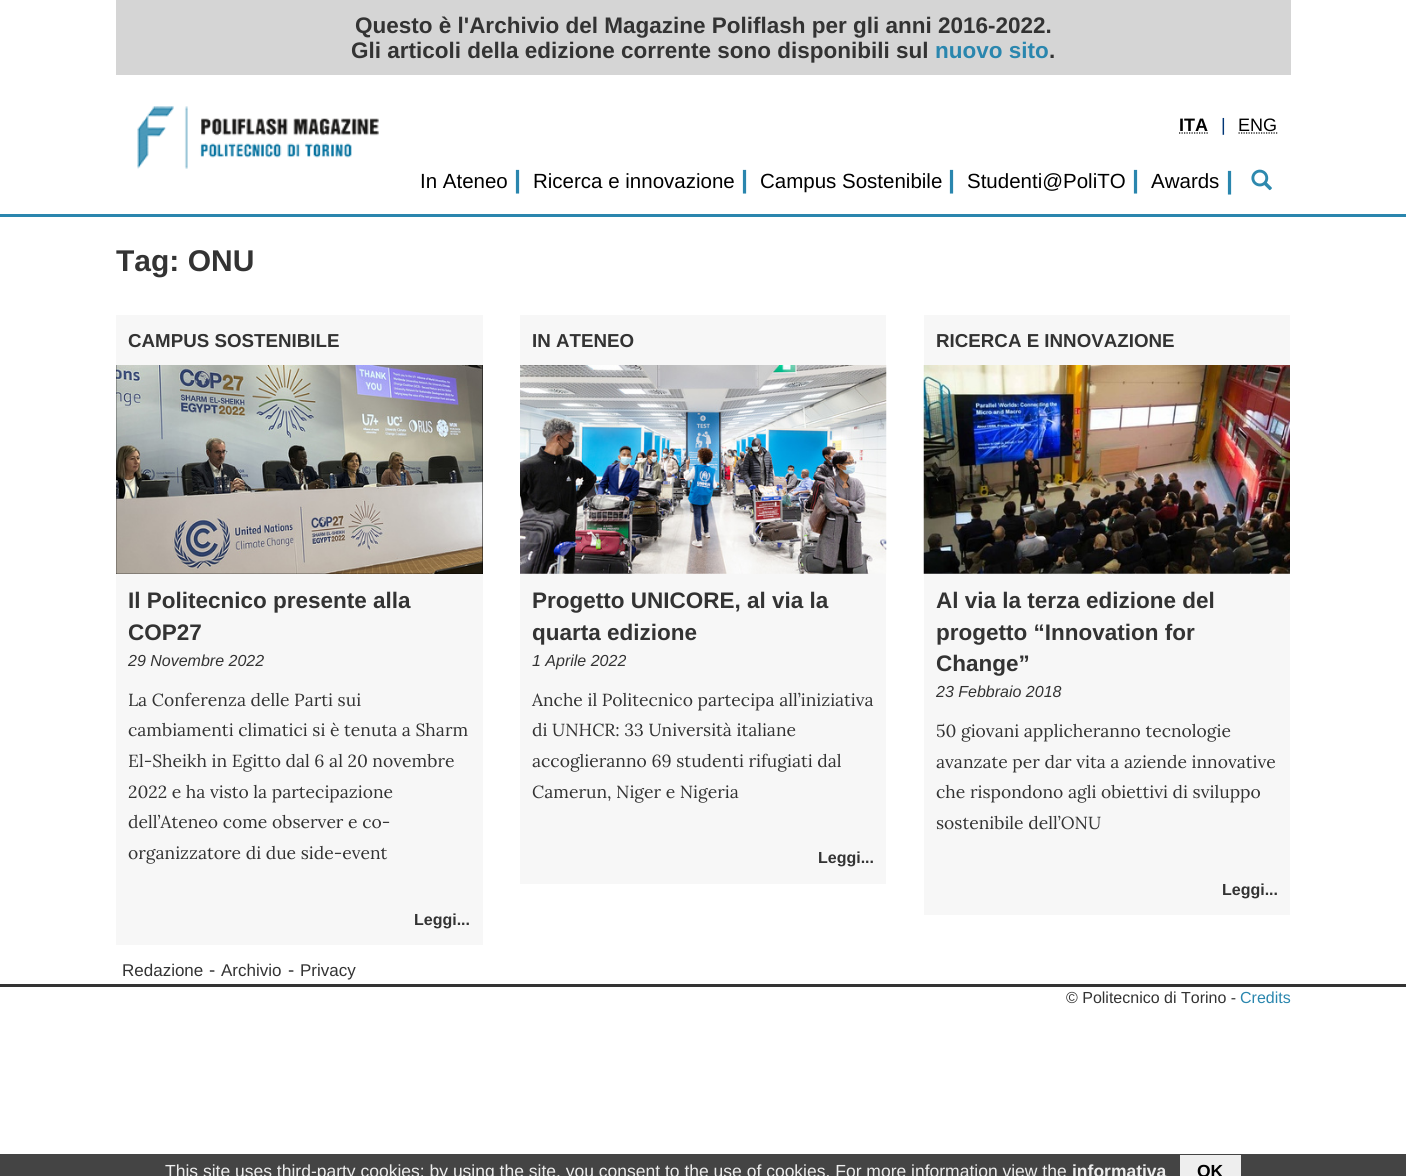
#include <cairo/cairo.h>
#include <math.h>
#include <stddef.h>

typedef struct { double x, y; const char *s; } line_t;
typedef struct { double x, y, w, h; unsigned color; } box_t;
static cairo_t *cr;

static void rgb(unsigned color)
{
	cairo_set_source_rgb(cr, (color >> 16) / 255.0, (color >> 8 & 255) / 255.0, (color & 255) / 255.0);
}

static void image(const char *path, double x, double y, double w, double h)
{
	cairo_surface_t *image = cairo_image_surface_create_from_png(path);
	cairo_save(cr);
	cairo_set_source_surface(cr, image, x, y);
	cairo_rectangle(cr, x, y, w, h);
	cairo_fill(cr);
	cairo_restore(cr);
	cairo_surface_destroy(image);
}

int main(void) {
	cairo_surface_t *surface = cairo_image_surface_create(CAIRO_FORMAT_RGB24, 1406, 1176);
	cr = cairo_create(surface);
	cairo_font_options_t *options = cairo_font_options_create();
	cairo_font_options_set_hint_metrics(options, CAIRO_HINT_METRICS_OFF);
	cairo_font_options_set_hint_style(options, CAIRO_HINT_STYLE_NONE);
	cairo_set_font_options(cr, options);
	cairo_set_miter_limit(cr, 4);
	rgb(0xffffff);
	cairo_paint(cr);
	rgb(0x2a86ae);
	cairo_rectangle(cr, 0, 214, 1406, 3);
	cairo_fill(cr);
	rgb(0xd5d5d5);
	cairo_rectangle(cr, 116, 0, 1175, 75);
	cairo_fill(cr);
	image("img/1.png", 137, 106, 242, 63);
	cairo_new_path(cr);
	cairo_move_to(cr, 1179, 133);
	cairo_line_to(cr, 1208.5, 133);
	rgb(0x000000);
	cairo_set_line_width(cr, 1.2);
	cairo_set_dash(cr, (double[]){1.25, 1.25}, 2, 0);
	cairo_stroke(cr);
	cairo_new_path(cr);
	cairo_move_to(cr, 1238.5, 133);
	cairo_line_to(cr, 1278, 133);
	cairo_stroke(cr);
	image("img/2.png", 1251, 169, 21, 22);
	rgb(0xf7f7f7);
	cairo_rectangle(cr, 116, 315, 367, 630);
	cairo_fill(cr);
	rgb(0x000000);
	cairo_rectangle(cr, 116, 365, 367, 209);
	cairo_fill(cr);
	image("img/3.png", 116, 365, 367, 209);
	rgb(0xf7f7f7);
	cairo_rectangle(cr, 520, 315, 366, 569);
	cairo_fill(cr);
	image("img/4.png", 520, 365, 367, 209);
	cairo_rectangle(cr, 924, 315, 366, 600);
	cairo_fill(cr);
	image("img/5.png", 923, 365, 367, 209);
	{
		static const box_t items[] = {
			{0, 984, 1406, 3, 0x333333},
			{0, 1154, 1406, 22, 0x444444},
			{1180, 1155, 61, 21, 0xeeeeee},
		};
		for (size_t i = 0; i < sizeof items / sizeof *items; i++) {
			rgb(items[i].color);
			cairo_rectangle(cr, items[i].x, items[i].y, items[i].w, items[i].h);
			cairo_fill(cr);
		}
	}
	cairo_select_font_face(cr, "Liberation Sans", CAIRO_FONT_SLANT_NORMAL, CAIRO_FONT_WEIGHT_BOLD);
	cairo_set_font_size(cr, 22.5);
	rgb(0x333333);
	cairo_move_to(cr, 355, 33);
	cairo_show_text(cr, "Questo è l'Archivio del Magazine Poliflash per gli anni 2016-2022.");
	cairo_move_to(cr, 351, 58);
	cairo_show_text(cr, "Gli articoli della edizione corrente sono disponibili sul");
	rgb(0x2a86ae);
	cairo_move_to(cr, 935, 58);
	cairo_show_text(cr, "nuovo sito");
	rgb(0x333333);
	cairo_move_to(cr, 1049, 58);
	cairo_show_text(cr, ".");
	cairo_set_font_size(cr, 18);
	rgb(0x000000);
	cairo_move_to(cr, 1179, 131);
	cairo_show_text(cr, "ITA");
	cairo_select_font_face(cr, "Liberation Sans", CAIRO_FONT_SLANT_NORMAL, CAIRO_FONT_WEIGHT_NORMAL);
	rgb(0x003576);
	cairo_move_to(cr, 1221, 131);
	cairo_show_text(cr, "|");
	rgb(0x000000);
	cairo_move_to(cr, 1238, 131);
	cairo_show_text(cr, "ENG");
	cairo_set_font_size(cr, 20.5);
	cairo_move_to(cr, 420, 188);
	cairo_show_text(cr, "In Ateneo");
	cairo_select_font_face(cr, "Liberation Sans", CAIRO_FONT_SLANT_NORMAL, CAIRO_FONT_WEIGHT_BOLD);
	cairo_set_font_size(cr, 25);
	rgb(0x2a86ae);
	cairo_move_to(cr, 514, 188);
	cairo_show_text(cr, "|");
	cairo_select_font_face(cr, "Liberation Sans", CAIRO_FONT_SLANT_NORMAL, CAIRO_FONT_WEIGHT_NORMAL);
	cairo_set_font_size(cr, 20.5);
	rgb(0x000000);
	cairo_move_to(cr, 533, 188);
	cairo_show_text(cr, "Ricerca e innovazione");
	cairo_select_font_face(cr, "Liberation Sans", CAIRO_FONT_SLANT_NORMAL, CAIRO_FONT_WEIGHT_BOLD);
	cairo_set_font_size(cr, 25);
	rgb(0x2a86ae);
	cairo_move_to(cr, 741, 188);
	cairo_show_text(cr, "|");
	cairo_select_font_face(cr, "Liberation Sans", CAIRO_FONT_SLANT_NORMAL, CAIRO_FONT_WEIGHT_NORMAL);
	cairo_set_font_size(cr, 20.5);
	rgb(0x000000);
	cairo_move_to(cr, 760, 188);
	cairo_show_text(cr, "Campus Sostenibile");
	cairo_select_font_face(cr, "Liberation Sans", CAIRO_FONT_SLANT_NORMAL, CAIRO_FONT_WEIGHT_BOLD);
	cairo_set_font_size(cr, 25);
	rgb(0x2a86ae);
	cairo_move_to(cr, 948, 188);
	cairo_show_text(cr, "|");
	cairo_select_font_face(cr, "Liberation Sans", CAIRO_FONT_SLANT_NORMAL, CAIRO_FONT_WEIGHT_NORMAL);
	cairo_set_font_size(cr, 20.5);
	rgb(0x000000);
	cairo_move_to(cr, 967, 188);
	cairo_show_text(cr, "Studenti@PoliTO");
	cairo_select_font_face(cr, "Liberation Sans", CAIRO_FONT_SLANT_NORMAL, CAIRO_FONT_WEIGHT_BOLD);
	cairo_set_font_size(cr, 25);
	rgb(0x2a86ae);
	cairo_move_to(cr, 1132, 188);
	cairo_show_text(cr, "|");
	cairo_select_font_face(cr, "Liberation Sans", CAIRO_FONT_SLANT_NORMAL, CAIRO_FONT_WEIGHT_NORMAL);
	cairo_set_font_size(cr, 20.5);
	rgb(0x000000);
	cairo_move_to(cr, 1151, 188);
	cairo_show_text(cr, "Awards");
	cairo_select_font_face(cr, "Liberation Sans", CAIRO_FONT_SLANT_NORMAL, CAIRO_FONT_WEIGHT_BOLD);
	cairo_set_font_size(cr, 25);
	rgb(0x2a86ae);
	cairo_move_to(cr, 1226, 189);
	cairo_show_text(cr, "|");
	cairo_set_font_size(cr, 30);
	rgb(0x333333);
	cairo_move_to(cr, 116, 271);
	cairo_show_text(cr, "Tag: ONU");
	cairo_set_font_size(cr, 18.75);
	cairo_move_to(cr, 128, 347);
	cairo_show_text(cr, "CAMPUS SOSTENIBILE");
	cairo_set_font_size(cr, 22.5);
	cairo_move_to(cr, 128, 608);
	cairo_show_text(cr, "Il Politecnico presente alla");
	cairo_move_to(cr, 128, 640);
	cairo_show_text(cr, "COP27");
	cairo_select_font_face(cr, "Liberation Sans", CAIRO_FONT_SLANT_ITALIC, CAIRO_FONT_WEIGHT_NORMAL);
	cairo_set_font_size(cr, 16);
	cairo_move_to(cr, 128, 666);
	cairo_show_text(cr, "29 Novembre 2022");
	cairo_select_font_face(cr, "Lora", CAIRO_FONT_SLANT_NORMAL, CAIRO_FONT_WEIGHT_NORMAL);
	cairo_set_font_size(cr, 17.5);
	{
		static const line_t items[] = {
			{128, 706, "La Conferenza delle Parti sui"},
			{128, 736, "cambiamenti climatici si è tenuta a Sharm"},
			{128, 767, "El-Sheikh in Egitto dal 6 al 20 novembre"},
			{128, 798, "2022 e ha visto la partecipazione"},
			{128, 828, "dell’Ateneo come observer e co-"},
			{128, 859, "organizzatore di due side-event"},
		};
		for (size_t i = 0; i < sizeof items / sizeof *items; i++) {
			cairo_move_to(cr, items[i].x, items[i].y);
			cairo_show_text(cr, items[i].s);
		}
	}
	cairo_select_font_face(cr, "Liberation Sans", CAIRO_FONT_SLANT_NORMAL, CAIRO_FONT_WEIGHT_BOLD);
	cairo_set_font_size(cr, 16);
	cairo_move_to(cr, 414, 925);
	cairo_show_text(cr, "Leggi...");
	cairo_set_font_size(cr, 18.75);
	cairo_move_to(cr, 532, 347);
	cairo_show_text(cr, "IN ATENEO");
	cairo_set_font_size(cr, 22.5);
	cairo_move_to(cr, 532, 608);
	cairo_show_text(cr, "Progetto UNICORE, al via la");
	cairo_move_to(cr, 532, 640);
	cairo_show_text(cr, "quarta edizione");
	cairo_select_font_face(cr, "Liberation Sans", CAIRO_FONT_SLANT_ITALIC, CAIRO_FONT_WEIGHT_NORMAL);
	cairo_set_font_size(cr, 16);
	cairo_move_to(cr, 532, 666);
	cairo_show_text(cr, "1 Aprile 2022");
	cairo_select_font_face(cr, "Lora", CAIRO_FONT_SLANT_NORMAL, CAIRO_FONT_WEIGHT_NORMAL);
	cairo_set_font_size(cr, 17.5);
	{
		static const line_t items[] = {
			{532, 706, "Anche il Politecnico partecipa all’iniziativa"},
			{532, 736, "di UNHCR: 33 Università italiane"},
			{532, 767, "accoglieranno 69 studenti rifugiati dal"},
			{532, 798, "Camerun, Niger e Nigeria"},
		};
		for (size_t i = 0; i < sizeof items / sizeof *items; i++) {
			cairo_move_to(cr, items[i].x, items[i].y);
			cairo_show_text(cr, items[i].s);
		}
	}
	cairo_select_font_face(cr, "Liberation Sans", CAIRO_FONT_SLANT_NORMAL, CAIRO_FONT_WEIGHT_BOLD);
	cairo_set_font_size(cr, 16);
	cairo_move_to(cr, 818, 863);
	cairo_show_text(cr, "Leggi...");
	cairo_set_font_size(cr, 18.75);
	cairo_move_to(cr, 936, 347);
	cairo_show_text(cr, "RICERCA E INNOVAZIONE");
	cairo_set_font_size(cr, 22.5);
	{
		static const line_t items[] = {
			{936, 608, "Al via la terza edizione del"},
			{936, 640, "progetto “Innovation for"},
			{936, 671, "Change”"},
		};
		for (size_t i = 0; i < sizeof items / sizeof *items; i++) {
			cairo_move_to(cr, items[i].x, items[i].y);
			cairo_show_text(cr, items[i].s);
		}
	}
	cairo_select_font_face(cr, "Liberation Sans", CAIRO_FONT_SLANT_ITALIC, CAIRO_FONT_WEIGHT_NORMAL);
	cairo_set_font_size(cr, 16);
	cairo_move_to(cr, 936, 697);
	cairo_show_text(cr, "23 Febbraio 2018");
	cairo_select_font_face(cr, "Lora", CAIRO_FONT_SLANT_NORMAL, CAIRO_FONT_WEIGHT_NORMAL);
	cairo_set_font_size(cr, 17.5);
	{
		static const line_t items[] = {
			{936, 737, "50 giovani applicheranno tecnologie"},
			{936, 768, "avanzate per dar vita a aziende innovative"},
			{936, 798, "che rispondono agli obiettivi di sviluppo"},
			{936, 829, "sostenibile dell’ONU"},
		};
		for (size_t i = 0; i < sizeof items / sizeof *items; i++) {
			cairo_move_to(cr, items[i].x, items[i].y);
			cairo_show_text(cr, items[i].s);
		}
	}
	cairo_select_font_face(cr, "Liberation Sans", CAIRO_FONT_SLANT_NORMAL, CAIRO_FONT_WEIGHT_BOLD);
	cairo_set_font_size(cr, 16);
	cairo_move_to(cr, 1222, 895);
	cairo_show_text(cr, "Leggi...");
	cairo_select_font_face(cr, "Liberation Sans", CAIRO_FONT_SLANT_NORMAL, CAIRO_FONT_WEIGHT_NORMAL);
	cairo_set_font_size(cr, 17);
	cairo_move_to(cr, 122, 976);
	cairo_show_text(cr, "Redazione");
	cairo_set_font_size(cr, 18.75);
	cairo_move_to(cr, 209, 976);
	cairo_show_text(cr, "-");
	cairo_set_font_size(cr, 17);
	cairo_move_to(cr, 221, 976);
	cairo_show_text(cr, "Archivio");
	cairo_set_font_size(cr, 18.75);
	cairo_move_to(cr, 288, 976);
	cairo_show_text(cr, "-");
	cairo_set_font_size(cr, 17);
	cairo_move_to(cr, 300, 976);
	cairo_show_text(cr, "Privacy");
	cairo_set_font_size(cr, 16);
	cairo_move_to(cr, 1066, 1003);
	cairo_show_text(cr, "© Politecnico di Torino -");
	rgb(0x2a86ae);
	cairo_move_to(cr, 1240, 1003);
	cairo_show_text(cr, "Credits");
	cairo_set_font_size(cr, 17.5);
	rgb(0xeeeeee);
	cairo_move_to(cr, 165, 1177);
	cairo_show_text(cr, "This site uses third-party cookies: by using the site, you consent to the use of cookies. For more information view the");
	cairo_select_font_face(cr, "Liberation Sans", CAIRO_FONT_SLANT_NORMAL, CAIRO_FONT_WEIGHT_BOLD);
	cairo_move_to(cr, 1072, 1177);
	cairo_show_text(cr, "informativa");
	rgb(0x000000);
	cairo_move_to(cr, 1197, 1177);
	cairo_show_text(cr, "OK");
	cairo_surface_write_to_png(surface, "page.png");
	cairo_font_options_destroy(options);
	cairo_destroy(cr);
	cairo_surface_destroy(surface);
	return 0;
}
